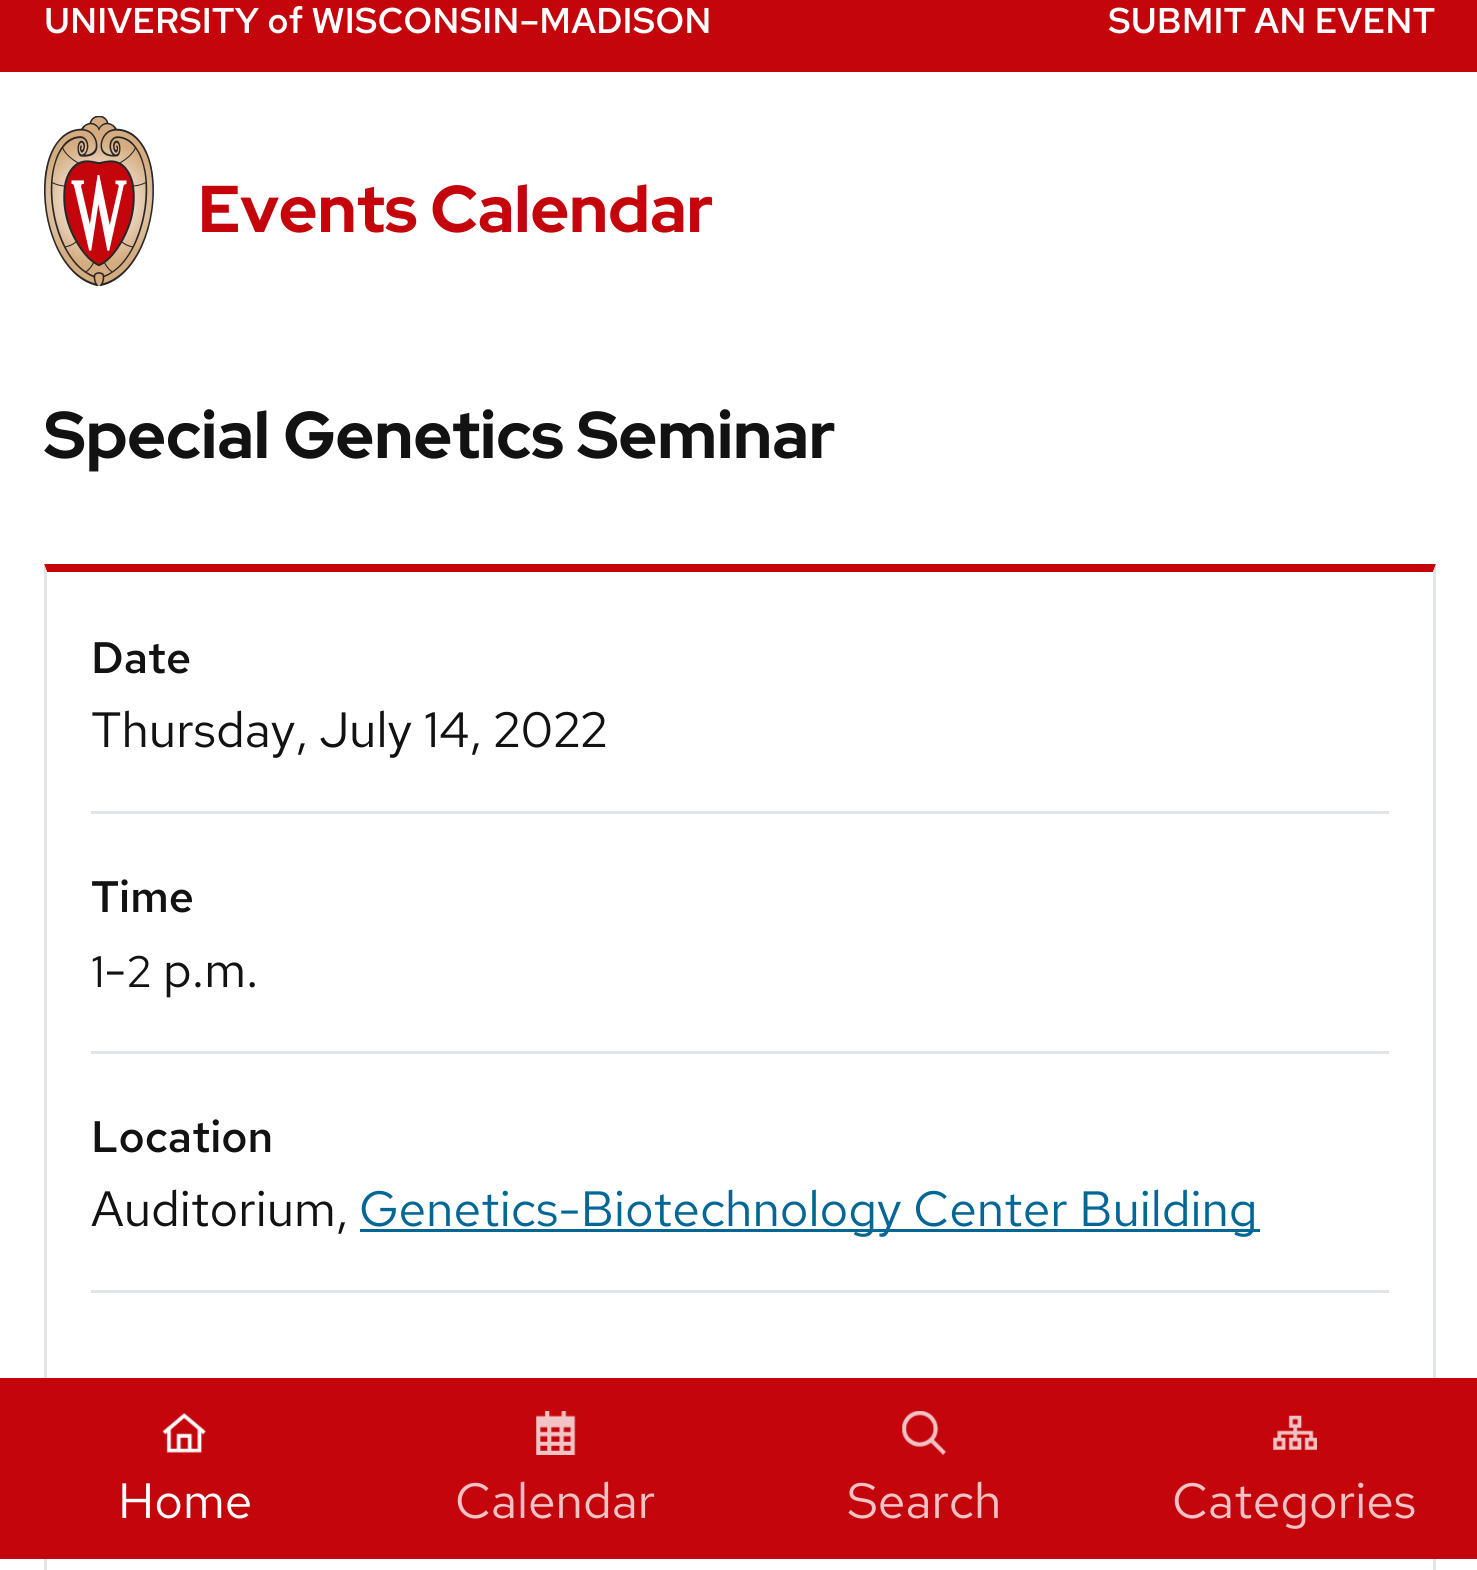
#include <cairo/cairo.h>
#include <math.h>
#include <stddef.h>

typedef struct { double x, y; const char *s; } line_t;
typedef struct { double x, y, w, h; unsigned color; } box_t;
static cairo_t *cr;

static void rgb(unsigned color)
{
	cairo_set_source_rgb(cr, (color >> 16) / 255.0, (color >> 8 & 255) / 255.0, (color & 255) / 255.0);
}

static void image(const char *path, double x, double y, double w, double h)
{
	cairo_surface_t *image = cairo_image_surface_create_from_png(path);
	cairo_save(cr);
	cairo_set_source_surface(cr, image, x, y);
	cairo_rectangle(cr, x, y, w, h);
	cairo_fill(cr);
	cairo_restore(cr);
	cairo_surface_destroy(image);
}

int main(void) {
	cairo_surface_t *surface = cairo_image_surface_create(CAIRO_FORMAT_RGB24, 1477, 1570);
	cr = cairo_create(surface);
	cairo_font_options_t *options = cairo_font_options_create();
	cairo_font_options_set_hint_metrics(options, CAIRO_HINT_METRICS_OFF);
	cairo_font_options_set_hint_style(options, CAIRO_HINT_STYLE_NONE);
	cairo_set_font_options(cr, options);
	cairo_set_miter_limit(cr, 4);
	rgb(0xffffff);
	cairo_paint(cr);
	rgb(0xc5050c);
	cairo_rectangle(cr, 0, 0, 1477, 72);
	cairo_fill(cr);
	image("img/1.png", 44, 116, 110, 170);
	cairo_new_path(cr);
	cairo_move_to(cr, 44, 564);
	cairo_line_to(cr, 1436, 564);
	cairo_line_to(cr, 1433, 572);
	cairo_line_to(cr, 47, 572);
	cairo_close_path(cr);
	cairo_fill(cr);
	rgb(0xe1e5e7);
	cairo_new_path(cr);
	cairo_move_to(cr, 1436, 564);
	cairo_line_to(cr, 1436, 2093);
	cairo_line_to(cr, 1433, 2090);
	cairo_line_to(cr, 1433, 572);
	cairo_close_path(cr);
	cairo_fill(cr);
	cairo_new_path(cr);
	cairo_move_to(cr, 44, 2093);
	cairo_line_to(cr, 44, 564);
	cairo_line_to(cr, 47, 572);
	cairo_line_to(cr, 47, 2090);
	cairo_close_path(cr);
	cairo_fill(cr);
	{
		static const box_t items[] = {
			{91, 811, 1298, 3, 0xe1e5e7},
			{91, 1051, 1298, 3, 0xe1e5e7},
			{360, 1229, 900, 3, 0x036796},
			{91, 1290, 1298, 3, 0xe1e5e7},
			{0, 1378, 1477, 181, 0xc5050c},
		};
		for (size_t i = 0; i < sizeof items / sizeof *items; i++) {
			rgb(items[i].color);
			cairo_rectangle(cr, items[i].x, items[i].y, items[i].w, items[i].h);
			cairo_fill(cr);
		}
	}
	image("img/2.png", 162, 1412, 44, 41);
	image("img/3.png", 536, 1411, 40, 44);
	image("img/4.png", 902, 1411, 45, 44);
	image("img/5.png", 1273, 1415, 44, 35);
	cairo_select_font_face(cr, "Red Hat Text Medium", CAIRO_FONT_SLANT_NORMAL, CAIRO_FONT_WEIGHT_NORMAL);
	cairo_set_font_size(cr, 35.75);
	rgb(0xffffff);
	cairo_move_to(cr, 44, 33);
	cairo_show_text(cr, "UNIVERSITY of WISCONSIN–MADISON");
	cairo_move_to(cr, 1108, 33);
	cairo_show_text(cr, "SUBMIT AN EVENT");
	cairo_select_font_face(cr, "Red Hat Display", CAIRO_FONT_SLANT_NORMAL, CAIRO_FONT_WEIGHT_BOLD);
	cairo_set_font_size(cr, 66);
	rgb(0xc5050c);
	cairo_move_to(cr, 198, 232);
	cairo_show_text(cr, "Events Calendar");
	rgb(0x121212);
	cairo_move_to(cr, 44, 458);
	cairo_show_text(cr, "Special Genetics Seminar");
	cairo_select_font_face(cr, "Red Hat Text SemiBold", CAIRO_FONT_SLANT_NORMAL, CAIRO_FONT_WEIGHT_NORMAL);
	cairo_set_font_size(cr, 44);
	cairo_move_to(cr, 91, 673);
	cairo_show_text(cr, "Date");
	cairo_select_font_face(cr, "Red Hat Text", CAIRO_FONT_SLANT_NORMAL, CAIRO_FONT_WEIGHT_NORMAL);
	cairo_set_font_size(cr, 49.5);
	cairo_move_to(cr, 91, 747);
	cairo_show_text(cr, "Thursday, July 14, 2022");
	cairo_select_font_face(cr, "Red Hat Text SemiBold", CAIRO_FONT_SLANT_NORMAL, CAIRO_FONT_WEIGHT_NORMAL);
	cairo_set_font_size(cr, 44);
	cairo_move_to(cr, 91, 912);
	cairo_show_text(cr, "Time");
	cairo_select_font_face(cr, "Red Hat Text", CAIRO_FONT_SLANT_NORMAL, CAIRO_FONT_WEIGHT_NORMAL);
	cairo_move_to(cr, 91, 987);
	cairo_show_text(cr, "1");
	cairo_set_font_size(cr, 49.5);
	cairo_move_to(cr, 104, 987);
	cairo_show_text(cr, "-");
	cairo_set_font_size(cr, 44);
	cairo_move_to(cr, 127, 987);
	cairo_show_text(cr, "2");
	cairo_set_font_size(cr, 49.5);
	cairo_move_to(cr, 163, 987);
	cairo_show_text(cr, "p.m.");
	cairo_select_font_face(cr, "Red Hat Text SemiBold", CAIRO_FONT_SLANT_NORMAL, CAIRO_FONT_WEIGHT_NORMAL);
	cairo_set_font_size(cr, 44);
	cairo_move_to(cr, 91, 1152);
	cairo_show_text(cr, "Location");
	cairo_select_font_face(cr, "Red Hat Text", CAIRO_FONT_SLANT_NORMAL, CAIRO_FONT_WEIGHT_NORMAL);
	cairo_set_font_size(cr, 49.5);
	cairo_move_to(cr, 91, 1226);
	cairo_show_text(cr, "Auditorium,");
	rgb(0x036796);
	cairo_move_to(cr, 359, 1226);
	cairo_show_text(cr, "Genetics-Biotechnology Center Building");
	rgb(0xffffff);
	cairo_move_to(cr, 118, 1518);
	cairo_show_text(cr, "Home");
	rgb(0xf1c3c5);
	{
		static const line_t items[] = {
			{455, 1518, "Calendar"},
			{847, 1518, "Search"},
			{1172, 1518, "Categories"},
		};
		for (size_t i = 0; i < sizeof items / sizeof *items; i++) {
			cairo_move_to(cr, items[i].x, items[i].y);
			cairo_show_text(cr, items[i].s);
		}
	}
	cairo_surface_write_to_png(surface, "page.png");
	cairo_font_options_destroy(options);
	cairo_destroy(cr);
	cairo_surface_destroy(surface);
	return 0;
}
